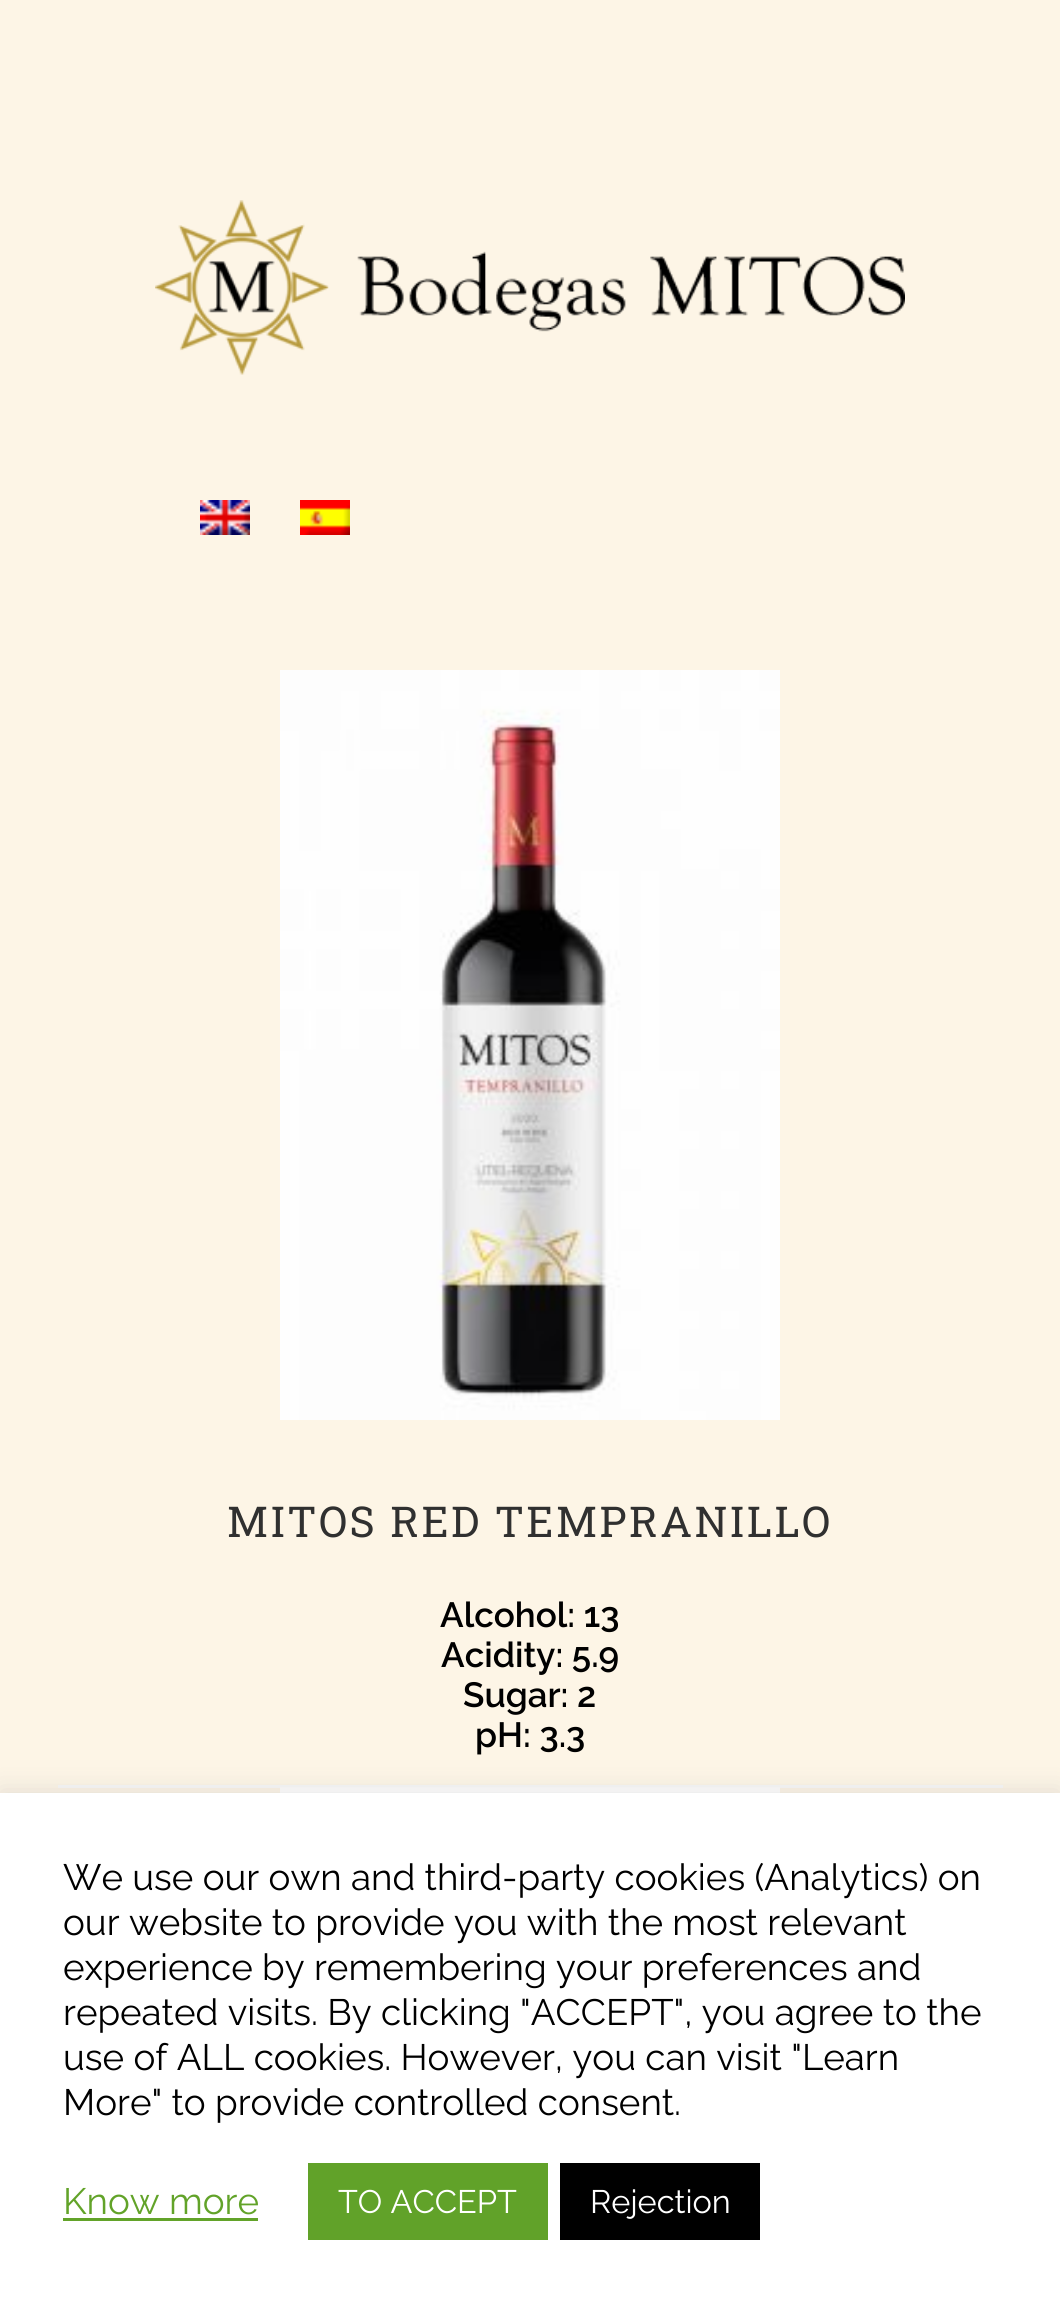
#include <cairo/cairo.h>
#include <math.h>
#include <stddef.h>

typedef struct { double x, y; const char *s; } line_t;
typedef struct { double x, y, w, h; unsigned color; } box_t;
static cairo_t *cr;

static void rgb(unsigned color)
{
	cairo_set_source_rgb(cr, (color >> 16) / 255.0, (color >> 8 & 255) / 255.0, (color & 255) / 255.0);
}

static void tracked(double x, double y, const char *s, double letter, double word)
{
	cairo_move_to(cr, x, y);
	while (*s) {
		char ch[5] = {0};
		int n = 0;
		do ch[n++] = *s++; while ((*s & 0xC0) == 0x80);
		cairo_show_text(cr, ch);
		cairo_rel_move_to(cr, letter + word * (*ch == ' '), 0);
	}
}

static void rrect(double x, double y, double w, double h, double r)
{
	cairo_new_sub_path(cr);
	cairo_arc(cr, x + w - r, y + h - r, r, 0, M_PI / 2);
	cairo_arc(cr, x + r, y + h - r, r, M_PI / 2, M_PI);
	cairo_arc(cr, x + r, y + r, r, M_PI, 1.5 * M_PI);
	cairo_arc(cr, x + w - r, y + r, r, 1.5 * M_PI, 2 * M_PI);
	cairo_close_path(cr);
}

static void soft_shadow(double x, double y, double w, double h, double r, double blur, double alpha)
{
	cairo_push_group_with_content(cr, CAIRO_CONTENT_ALPHA);
	cairo_set_operator(cr, CAIRO_OPERATOR_SOURCE);
	for (int i = 15; i >= -15 && fmin(w, h) + blur * i / 3 > 0; i -= 2) {
		double e = blur * i / 6;
		cairo_set_source_rgba(cr, 0, 0, 0, alpha * erfc((i - 1) / 8.5) / 2);
		rrect(x - e, y - e, w + 2 * e, h + 2 * e, fmax(0, fmin(r + e + blur * .6, fmin(w, h) / 2 + e)));
		cairo_fill(cr);
	}
	cairo_pattern_t *soft = cairo_pop_group(cr);
	cairo_mask(cr, soft);
	cairo_pattern_destroy(soft);
}

static void image(const char *path, double x, double y, double w, double h)
{
	cairo_surface_t *image = cairo_image_surface_create_from_png(path);
	cairo_save(cr);
	cairo_set_source_surface(cr, image, x, y);
	cairo_rectangle(cr, x, y, w, h);
	cairo_fill(cr);
	cairo_restore(cr);
	cairo_surface_destroy(image);
}

int main(void) {
	cairo_surface_t *surface = cairo_image_surface_create(CAIRO_FORMAT_RGB24, 1060, 2315);
	cr = cairo_create(surface);
	cairo_font_options_t *options = cairo_font_options_create();
	cairo_font_options_set_hint_metrics(options, CAIRO_HINT_METRICS_OFF);
	cairo_font_options_set_hint_style(options, CAIRO_HINT_STYLE_NONE);
	cairo_set_font_options(cr, options);
	cairo_set_miter_limit(cr, 4);
	rgb(0xfdf5e6);
	cairo_paint(cr);
	image("img/1.png", 155, 200, 750, 175);
	image("img/2.png", 200, 500, 50, 35);
	image("img/3.png", 300, 500, 50, 35);
	image("img/4.png", 280, 670, 500, 750);
	rgb(0xf7f7f7);
	cairo_rectangle(cr, 58, 1785, 945, 3);
	cairo_fill(cr);
	image("img/5.png", 280, 1787, 500, 6);
	rgb(0xacabab);
	soft_shadow(0, 1790, 1060, 523, 0, 12.5, 0.3);
	{
		static const box_t items[] = {
			{0, 1793, 1060, 522, 0xffffff},
			{63, 2218, 195, 3, 0x62a329},
			{308, 2163, 240, 77, 0x61a229},
			{560, 2163, 200, 77, 0x000000},
		};
		for (size_t i = 0; i < sizeof items / sizeof *items; i++) {
			rgb(items[i].color);
			cairo_rectangle(cr, items[i].x, items[i].y, items[i].w, items[i].h);
			cairo_fill(cr);
		}
	}
	cairo_select_font_face(cr, "Roboto Slab", CAIRO_FONT_SLANT_NORMAL, CAIRO_FONT_WEIGHT_NORMAL);
	cairo_set_font_size(cr, 42.5);
	rgb(0x303030);
	tracked(227, 1537, "MITOS RED TEMPRANILLO", 2.5, 0);
	cairo_select_font_face(cr, "Raleway SemiBold", CAIRO_FONT_SLANT_NORMAL, CAIRO_FONT_WEIGHT_NORMAL);
	cairo_set_font_size(cr, 35);
	rgb(0x000000);
	{
		static const line_t items[] = {
			{440, 1627, "Alcohol: 13"},
			{441, 1667, "Acidity: 5.9"},
			{463, 1707, "Sugar: 2"},
			{475, 1747, "pH: 3.3"},
		};
		for (size_t i = 0; i < sizeof items / sizeof *items; i++) {
			cairo_move_to(cr, items[i].x, items[i].y);
			cairo_show_text(cr, items[i].s);
		}
	}
	cairo_select_font_face(cr, "Raleway", CAIRO_FONT_SLANT_NORMAL, CAIRO_FONT_WEIGHT_NORMAL);
	cairo_set_font_size(cr, 36.7);
	{
		static const line_t items[] = {
			{63, 1890, "We use our own and third-party cookies (Analytics) on"},
			{63, 1935, "our website to provide you with the most relevant"},
			{63, 1980, "experience by remembering your preferences and"},
			{63, 2025, "repeated visits. By clicking \"ACCEPT\", you agree to the"},
			{63, 2070, "use of ALL cookies. However, you can visit \"Learn"},
			{63, 2115, "More\" to provide controlled consent."},
		};
		for (size_t i = 0; i < sizeof items / sizeof *items; i++) {
			cairo_move_to(cr, items[i].x, items[i].y);
			cairo_show_text(cr, items[i].s);
		}
	}
	rgb(0x62a329);
	cairo_move_to(cr, 63, 2214);
	cairo_show_text(cr, "Know more");
	cairo_set_font_size(cr, 32.5);
	rgb(0xffffff);
	cairo_move_to(cr, 338, 2213);
	cairo_show_text(cr, "TO ACCEPT");
	cairo_move_to(cr, 590, 2213);
	cairo_show_text(cr, "Rejection");
	cairo_surface_write_to_png(surface, "page.png");
	cairo_font_options_destroy(options);
	cairo_destroy(cr);
	cairo_surface_destroy(surface);
	return 0;
}
